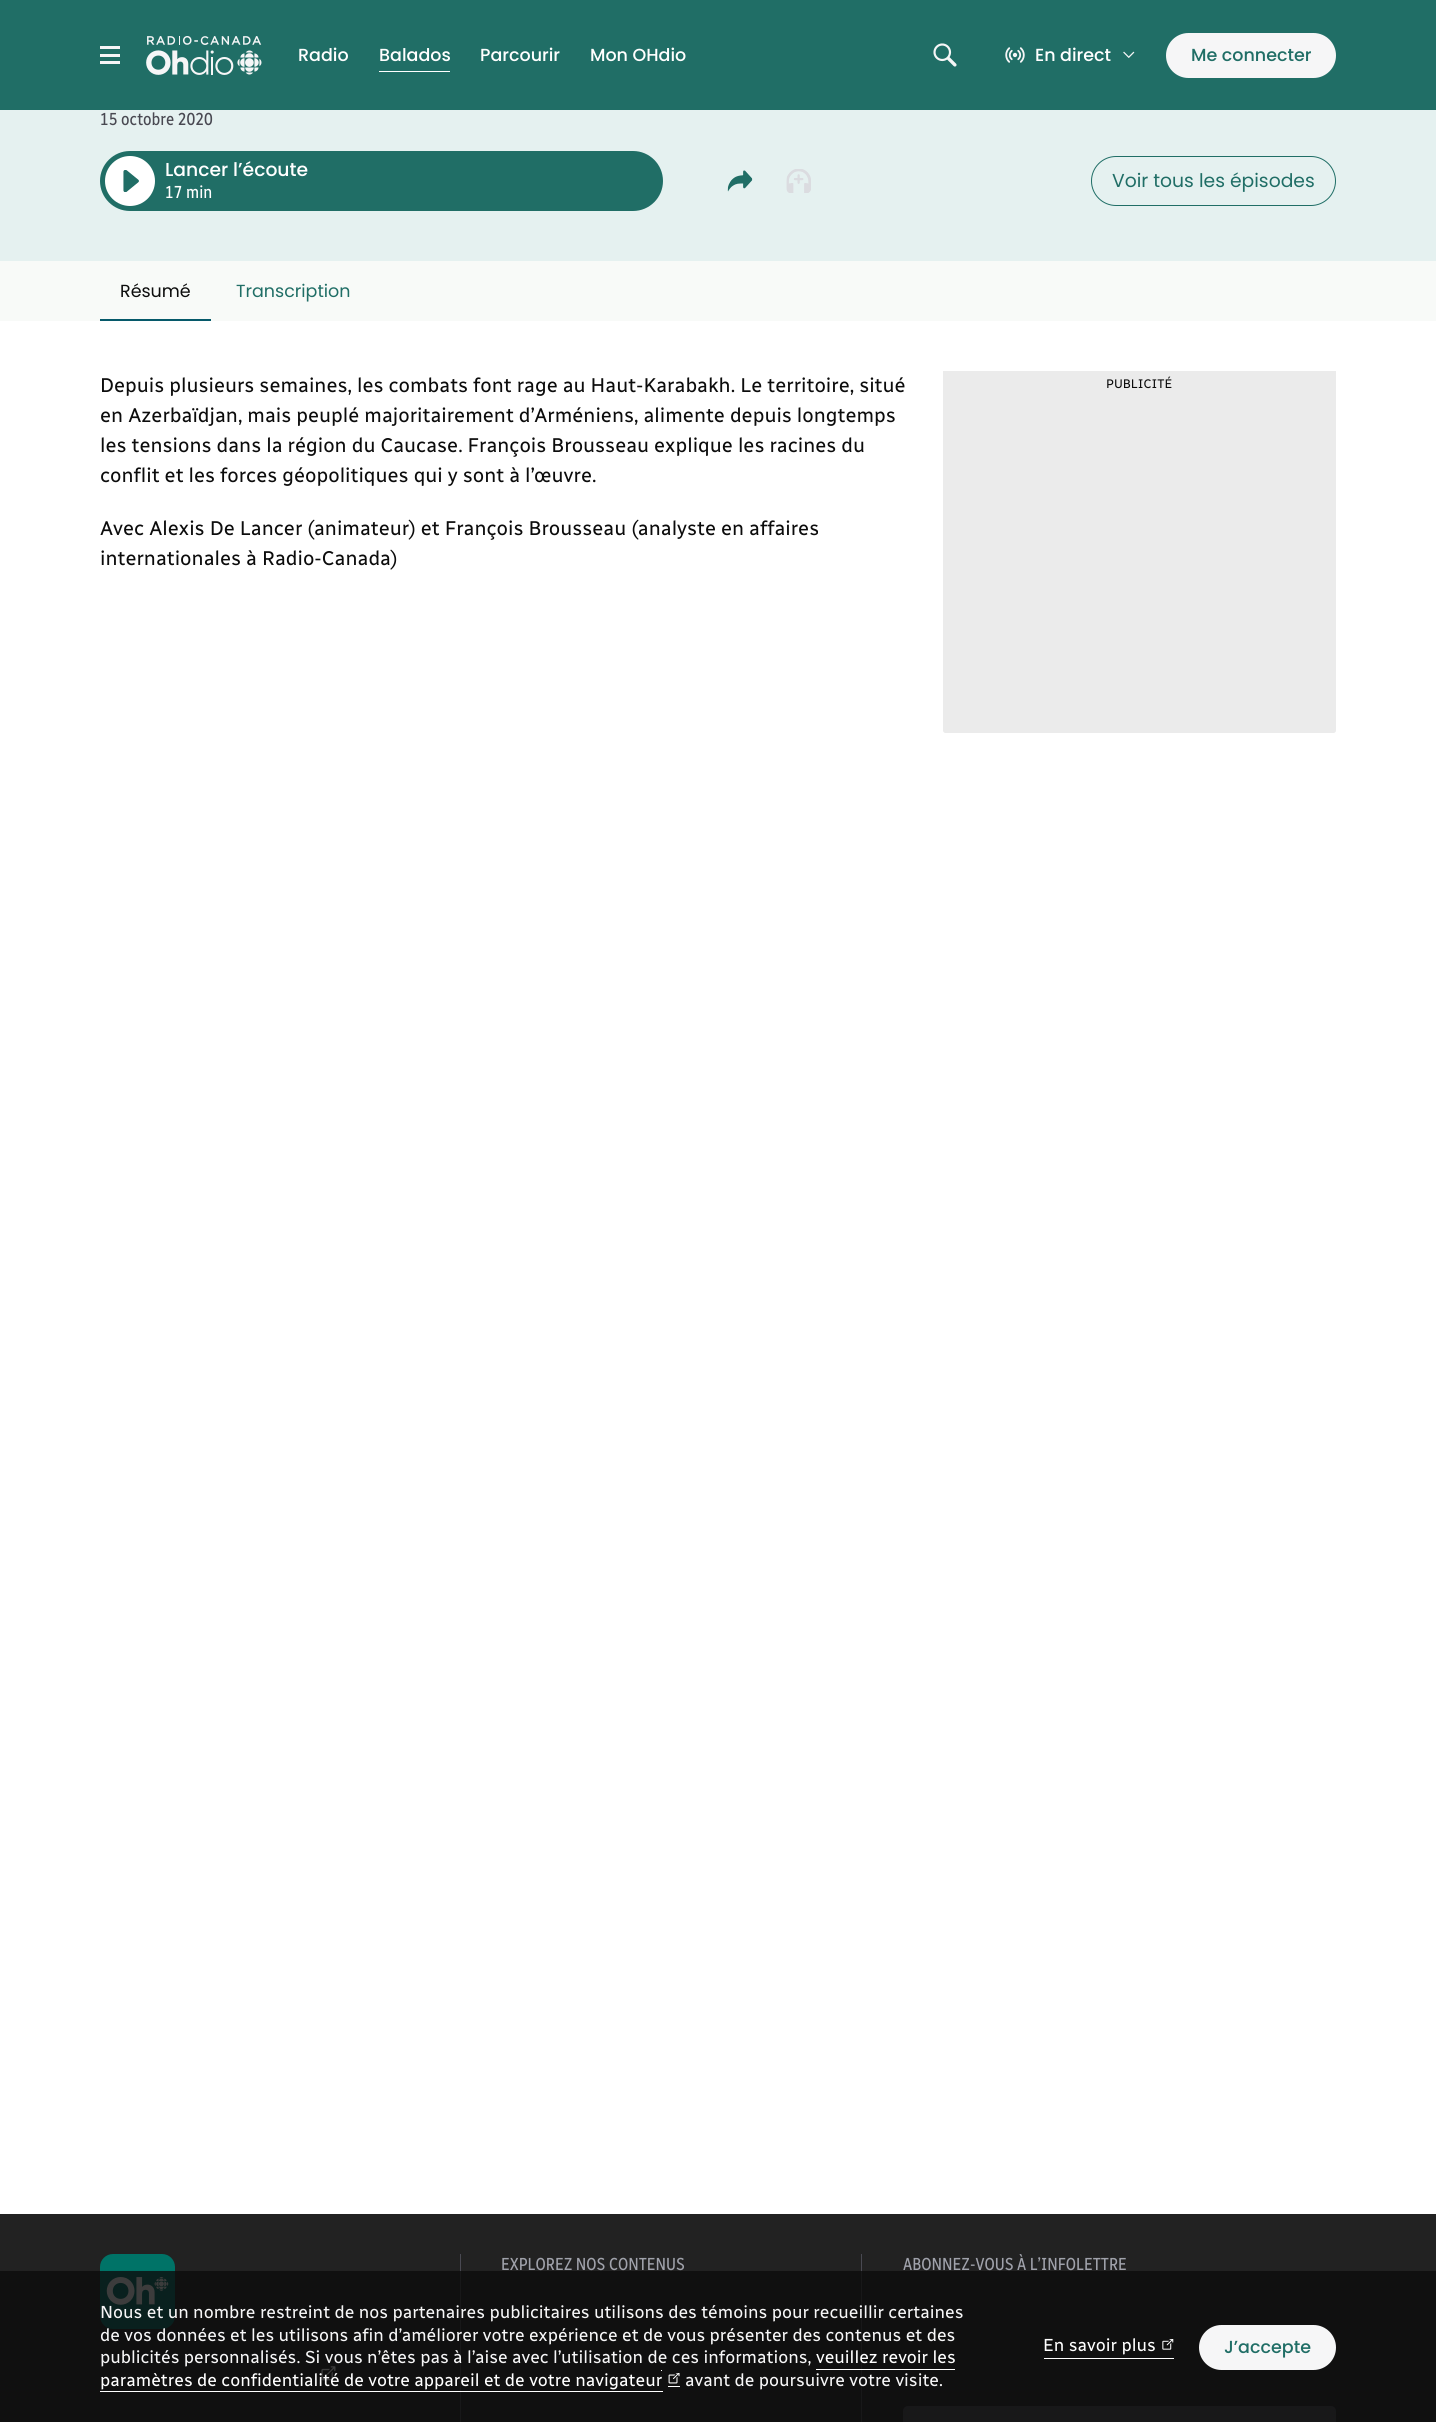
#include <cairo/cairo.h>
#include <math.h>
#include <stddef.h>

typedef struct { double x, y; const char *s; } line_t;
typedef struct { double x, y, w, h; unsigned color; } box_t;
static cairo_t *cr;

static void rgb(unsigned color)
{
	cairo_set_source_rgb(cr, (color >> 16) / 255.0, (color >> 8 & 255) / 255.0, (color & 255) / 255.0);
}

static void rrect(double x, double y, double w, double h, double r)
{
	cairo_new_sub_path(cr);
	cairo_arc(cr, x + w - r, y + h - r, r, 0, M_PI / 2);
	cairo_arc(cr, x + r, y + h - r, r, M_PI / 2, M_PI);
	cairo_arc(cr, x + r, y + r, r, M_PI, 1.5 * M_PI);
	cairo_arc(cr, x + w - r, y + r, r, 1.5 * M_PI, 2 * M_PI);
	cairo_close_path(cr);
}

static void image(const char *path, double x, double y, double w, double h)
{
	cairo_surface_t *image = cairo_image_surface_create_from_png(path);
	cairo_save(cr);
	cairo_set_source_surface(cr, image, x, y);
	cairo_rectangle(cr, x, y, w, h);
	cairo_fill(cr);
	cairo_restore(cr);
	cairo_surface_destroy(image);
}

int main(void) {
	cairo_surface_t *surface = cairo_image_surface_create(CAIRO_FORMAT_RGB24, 1436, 2422);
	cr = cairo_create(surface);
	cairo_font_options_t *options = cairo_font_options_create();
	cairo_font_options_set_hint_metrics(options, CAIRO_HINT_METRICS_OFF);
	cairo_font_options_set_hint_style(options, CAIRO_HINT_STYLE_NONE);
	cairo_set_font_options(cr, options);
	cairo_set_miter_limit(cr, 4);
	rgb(0xffffff);
	cairo_paint(cr);
	{
		static const box_t items[] = {
			{0, 0, 1436, 110, 0x206e66},
			{100, 46, 20, 3, 0xf6f6f7},
			{100, 54, 20, 3, 0xf6f6f7},
			{100, 61, 20, 3, 0xf6f6f7},
		};
		for (size_t i = 0; i < sizeof items / sizeof *items; i++) {
			rgb(items[i].color);
			cairo_rectangle(cr, items[i].x, items[i].y, items[i].w, items[i].h);
			cairo_fill(cr);
		}
	}
	image("img/1.png", 146, 36, 116, 39);
	rgb(0xffffff);
	cairo_rectangle(cr, 379, 71, 71, 1);
	cairo_fill(cr);
	image("img/2.png", 933, 43, 24, 24);
	image("img/3.png", 1005, 47, 20, 16);
	image("img/4.png", 1123, 51, 12, 7);
	rgb(0xf6f6f7);
	rrect(1166, 33, 170, 45, 22.5);
	cairo_fill(cr);
	rgb(0xe5f1f0);
	cairo_rectangle(cr, 0, 110, 1436, 151);
	cairo_fill(cr);
	rgb(0x206e66);
	rrect(100, 151, 563, 60, 30);
	cairo_fill(cr);
	rgb(0xffffff);
	cairo_arc(cr, 130, 181, 25, 0, 2 * M_PI);
	cairo_fill(cr);
	image("img/5.png", 123, 170, 16, 22);
	image("img/6.png", 727, 170, 26, 22);
	image("img/7.png", 786, 169, 25, 24);
	rrect(1091.5, 156.5, 244, 49, 24.5);
	rgb(0x206e66);
	cairo_set_line_width(cr, 1);
	cairo_stroke(cr);
	rgb(0xf8faf8);
	cairo_rectangle(cr, 0, 261, 1436, 60);
	cairo_fill(cr);
	rgb(0x06596a);
	cairo_rectangle(cr, 100, 319, 111, 2);
	cairo_fill(cr);
	rgb(0xebebeb);
	rrect(943, 371, 393, 362, 2.5);
	cairo_fill(cr);
	{
		static const box_t items[] = {
			{943, 371, 393, 2, 0xebebeb},
			{0, 2214, 1436, 208, 0x222222},
			{460, 2254, 1, 168, 0x494952},
		};
		for (size_t i = 0; i < sizeof items / sizeof *items; i++) {
			rgb(items[i].color);
			cairo_rectangle(cr, items[i].x, items[i].y, items[i].w, items[i].h);
			cairo_fill(cr);
		}
	}
	image("img/8.png", 100, 2254, 75, 75);
	image("img/9.png", 321, 2366, 15, 15);
	cairo_rectangle(cr, 861, 2254, 1, 168);
	cairo_fill(cr);
	rrect(903, 2406, 433, 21, 5);
	cairo_fill(cr);
	cairo_set_source_rgba(cr, 0.047, 0.047, 0.047, 0.8);
	cairo_rectangle(cr, 0, 2271, 1436, 151);
	cairo_fill(cr);
	rgb(0xffffff);
	cairo_rectangle(cr, 816, 2369, 139, 1);
	cairo_fill(cr);
	cairo_rectangle(cr, 100, 2391, 563, 1);
	cairo_fill(cr);
	cairo_rectangle(cr, 661, 2370, 1, 1);
	cairo_fill(cr);
	cairo_rectangle(cr, 668, 2386, 12, 1);
	cairo_fill(cr);
	image("img/10.png", 668, 2373, 12, 11);
	cairo_rectangle(cr, 1044, 2358, 130, 1);
	cairo_fill(cr);
	image("img/11.png", 1162, 2339, 12, 11);
	rgb(0xf6f6f7);
	rrect(1199, 2325, 137, 45, 22.5);
	cairo_fill(cr);
	cairo_select_font_face(cr, "Poppins Medium", CAIRO_FONT_SLANT_NORMAL, CAIRO_FONT_WEIGHT_NORMAL);
	cairo_set_font_size(cr, 17.5);
	rgb(0xffffff);
	{
		static const line_t items[] = {
			{298, 61, "Radio"},
			{379, 61, "Balados"},
			{480, 61, "Parcourir"},
			{590, 61, "Mon OHdio"},
			{1035, 61, "En direct"},
		};
		for (size_t i = 0; i < sizeof items / sizeof *items; i++) {
			cairo_move_to(cr, items[i].x, items[i].y);
			cairo_show_text(cr, items[i].s);
		}
	}
	rgb(0x206e66);
	cairo_move_to(cr, 1191, 61);
	cairo_show_text(cr, "Me connecter");
	cairo_select_font_face(cr, "Radio Canada", CAIRO_FONT_SLANT_NORMAL, CAIRO_FONT_WEIGHT_NORMAL);
	rgb(0x494952);
	cairo_move_to(cr, 100, 125);
	cairo_show_text(cr, "15 octobre 2020");
	cairo_select_font_face(cr, "Poppins Medium", CAIRO_FONT_SLANT_NORMAL, CAIRO_FONT_WEIGHT_NORMAL);
	cairo_set_font_size(cr, 18.75);
	rgb(0xffffff);
	cairo_move_to(cr, 165, 176);
	cairo_show_text(cr, "Lancer l’écoute");
	cairo_select_font_face(cr, "Radio Canada", CAIRO_FONT_SLANT_NORMAL, CAIRO_FONT_WEIGHT_NORMAL);
	cairo_set_font_size(cr, 17.5);
	cairo_move_to(cr, 165, 198);
	cairo_show_text(cr, "17 min");
	cairo_select_font_face(cr, "Poppins", CAIRO_FONT_SLANT_NORMAL, CAIRO_FONT_WEIGHT_NORMAL);
	cairo_set_font_size(cr, 18.75);
	rgb(0x206e66);
	cairo_move_to(cr, 1112, 187);
	cairo_show_text(cr, "Voir tous les épisodes");
	cairo_set_font_size(cr, 17.5);
	rgb(0x0c0c0c);
	cairo_move_to(cr, 120, 297);
	cairo_show_text(cr, "Résumé");
	rgb(0x206e66);
	cairo_move_to(cr, 236, 297);
	cairo_show_text(cr, "Transcription");
	cairo_select_font_face(cr, "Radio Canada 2", CAIRO_FONT_SLANT_NORMAL, CAIRO_FONT_WEIGHT_NORMAL);
	cairo_set_font_size(cr, 20);
	rgb(0x0c0c0c);
	{
		static const line_t items[] = {
			{100, 392, "Depuis plusieurs semaines, les combats font rage au Haut-Karabakh. Le territoire, situé"},
			{100, 422, "en Azerbaïdjan, mais peuplé majoritairement d’Arméniens, alimente depuis longtemps"},
			{100, 452, "les tensions dans la région du Caucase. François Brousseau explique les racines du"},
			{100, 482, "conflit et les forces géopolitiques qui y sont à l’œuvre."},
			{100, 535, "Avec Alexis De Lancer (animateur) et François Brousseau (analyste en affaires"},
			{100, 565, "internationales à Radio-Canada)"},
		};
		for (size_t i = 0; i < sizeof items / sizeof *items; i++) {
			cairo_move_to(cr, items[i].x, items[i].y);
			cairo_show_text(cr, items[i].s);
		}
	}
	cairo_set_font_size(cr, 12.5);
	cairo_move_to(cr, 1106, 388);
	cairo_show_text(cr, "PUBLICITÉ");
	cairo_select_font_face(cr, "Radio Canada", CAIRO_FONT_SLANT_NORMAL, CAIRO_FONT_WEIGHT_NORMAL);
	cairo_set_font_size(cr, 17.5);
	rgb(0xa0a2ab);
	cairo_move_to(cr, 501, 2270);
	cairo_show_text(cr, "EXPLOREZ NOS CONTENUS");
	cairo_move_to(cr, 903, 2270);
	cairo_show_text(cr, "ABONNEZ-VOUS À L’INFOLETTRE");
	cairo_select_font_face(cr, "Radio Canada 2", CAIRO_FONT_SLANT_NORMAL, CAIRO_FONT_WEIGHT_NORMAL);
	rgb(0xf6f6f7);
	{
		static const line_t items[] = {
			{100, 2318, "Nous et un nombre restreint de nos partenaires publicitaires utilisons des témoins pour recueillir certaines"},
			{100, 2341, "de vos données et les utilisons afin d’améliorer votre expérience et de vous présenter des contenus et des"},
			{100, 2363, "publicités personnalisés. Si vous n’êtes pas à l’aise avec l’utilisation de ces informations,"},
		};
		for (size_t i = 0; i < sizeof items / sizeof *items; i++) {
			cairo_move_to(cr, items[i].x, items[i].y);
			cairo_show_text(cr, items[i].s);
		}
	}
	rgb(0xffffff);
	cairo_move_to(cr, 816, 2363);
	cairo_show_text(cr, "veuillez revoir les");
	cairo_move_to(cr, 100, 2386);
	cairo_show_text(cr, "paramètres de confidentialité de votre appareil et de votre navigateur");
	rgb(0xf6f6f7);
	cairo_move_to(cr, 685, 2386);
	cairo_show_text(cr, "avant de poursuivre votre visite.");
	rgb(0xffffff);
	cairo_move_to(cr, 1043, 2351);
	cairo_show_text(cr, "En savoir plus");
	cairo_select_font_face(cr, "Poppins Medium", CAIRO_FONT_SLANT_NORMAL, CAIRO_FONT_WEIGHT_NORMAL);
	rgb(0x206e66);
	cairo_move_to(cr, 1224, 2353);
	cairo_show_text(cr, "J’accepte");
	cairo_surface_write_to_png(surface, "page.png");
	cairo_font_options_destroy(options);
	cairo_destroy(cr);
	cairo_surface_destroy(surface);
	return 0;
}
